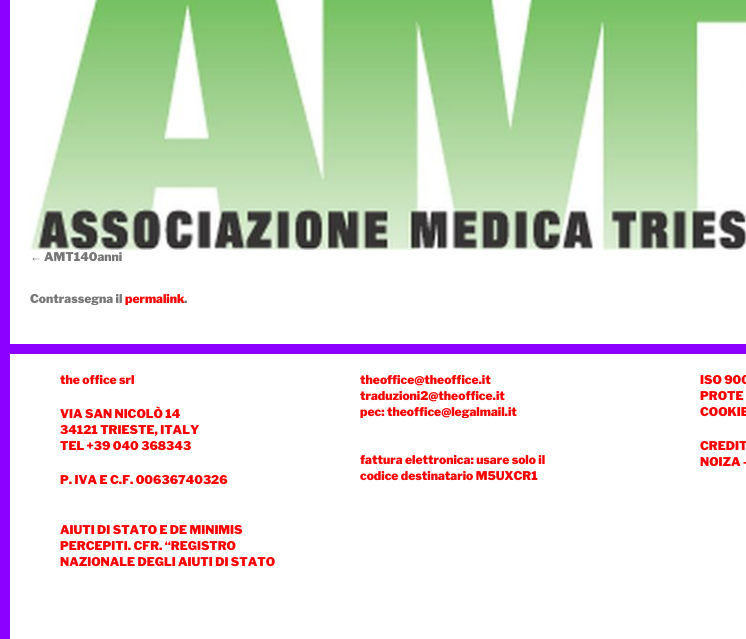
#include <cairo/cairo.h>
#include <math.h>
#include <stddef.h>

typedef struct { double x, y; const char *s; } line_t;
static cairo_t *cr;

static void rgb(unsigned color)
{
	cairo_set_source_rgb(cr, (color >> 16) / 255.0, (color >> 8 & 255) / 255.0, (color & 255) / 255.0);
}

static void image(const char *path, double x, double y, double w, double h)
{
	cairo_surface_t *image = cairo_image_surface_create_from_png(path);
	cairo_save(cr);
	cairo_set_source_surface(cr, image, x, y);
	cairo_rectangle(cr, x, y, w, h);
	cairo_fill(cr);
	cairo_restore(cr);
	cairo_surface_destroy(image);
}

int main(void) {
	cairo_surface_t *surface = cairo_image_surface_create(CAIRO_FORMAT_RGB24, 746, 639);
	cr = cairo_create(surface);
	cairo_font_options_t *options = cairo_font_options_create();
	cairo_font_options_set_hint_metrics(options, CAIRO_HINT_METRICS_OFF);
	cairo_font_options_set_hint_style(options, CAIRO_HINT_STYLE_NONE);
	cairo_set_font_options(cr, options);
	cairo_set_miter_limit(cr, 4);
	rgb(0x8c00ff);
	cairo_paint(cr);
	rgb(0xffffff);
	cairo_rectangle(cr, 10, 0, 736, 344);
	cairo_fill(cr);
	image("img/1.png", 30, 0, 716, 250);
	cairo_rectangle(cr, 10, 354, 736, 285);
	cairo_fill(cr);
	cairo_select_font_face(cr, "Liberation Sans", CAIRO_FONT_SLANT_NORMAL, CAIRO_FONT_WEIGHT_NORMAL);
	cairo_set_font_size(cr, 12);
	rgb(0x777777);
	cairo_move_to(cr, 30, 261);
	cairo_show_text(cr, "←");
	cairo_select_font_face(cr, "Libre Franklin Thin", CAIRO_FONT_SLANT_NORMAL, CAIRO_FONT_WEIGHT_NORMAL);
	cairo_move_to(cr, 44, 261);
	cairo_show_text(cr, "AMT140anni");
	cairo_move_to(cr, 30, 303);
	cairo_show_text(cr, "Contrassegna il");
	rgb(0xff0000);
	cairo_move_to(cr, 125, 303);
	cairo_show_text(cr, "permalink");
	rgb(0x777777);
	cairo_move_to(cr, 184, 303);
	cairo_show_text(cr, ".");
	rgb(0xff0000);
	{
		static const line_t items[] = {
			{60, 384, "the office srl"},
			{60, 418, "VIA SAN NICOLÒ 14"},
			{60, 434, "34121 TRIESTE, ITALY"},
			{60, 450, "TEL +39 040 368343"},
			{60, 484, "P. IVA E C.F. 00636740326"},
			{60, 534, "AIUTI DI STATO E DE MINIMIS"},
			{60, 550, "PERCEPITI. CFR. “REGISTRO"},
			{60, 566, "NAZIONALE DEGLI AIUTI DI STATO"},
			{360, 384, "theoffice@theoffice.it"},
			{360, 400, "traduzioni2@theoffice.it"},
			{360, 416, "pec: theoffice@legalmail.it"},
			{360, 464, "fattura elettronica: usare solo il"},
			{360, 480, "codice destinatario M5UXCR1"},
			{700, 384, "ISO 900"},
			{700, 400, "PROTE"},
			{700, 416, "COOKIE"},
			{700, 450, "CREDIT"},
			{700, 466, "NOIZA -"},
		};
		for (size_t i = 0; i < sizeof items / sizeof *items; i++) {
			cairo_move_to(cr, items[i].x, items[i].y);
			cairo_show_text(cr, items[i].s);
		}
	}
	cairo_surface_write_to_png(surface, "page.png");
	cairo_font_options_destroy(options);
	cairo_destroy(cr);
	cairo_surface_destroy(surface);
	return 0;
}
